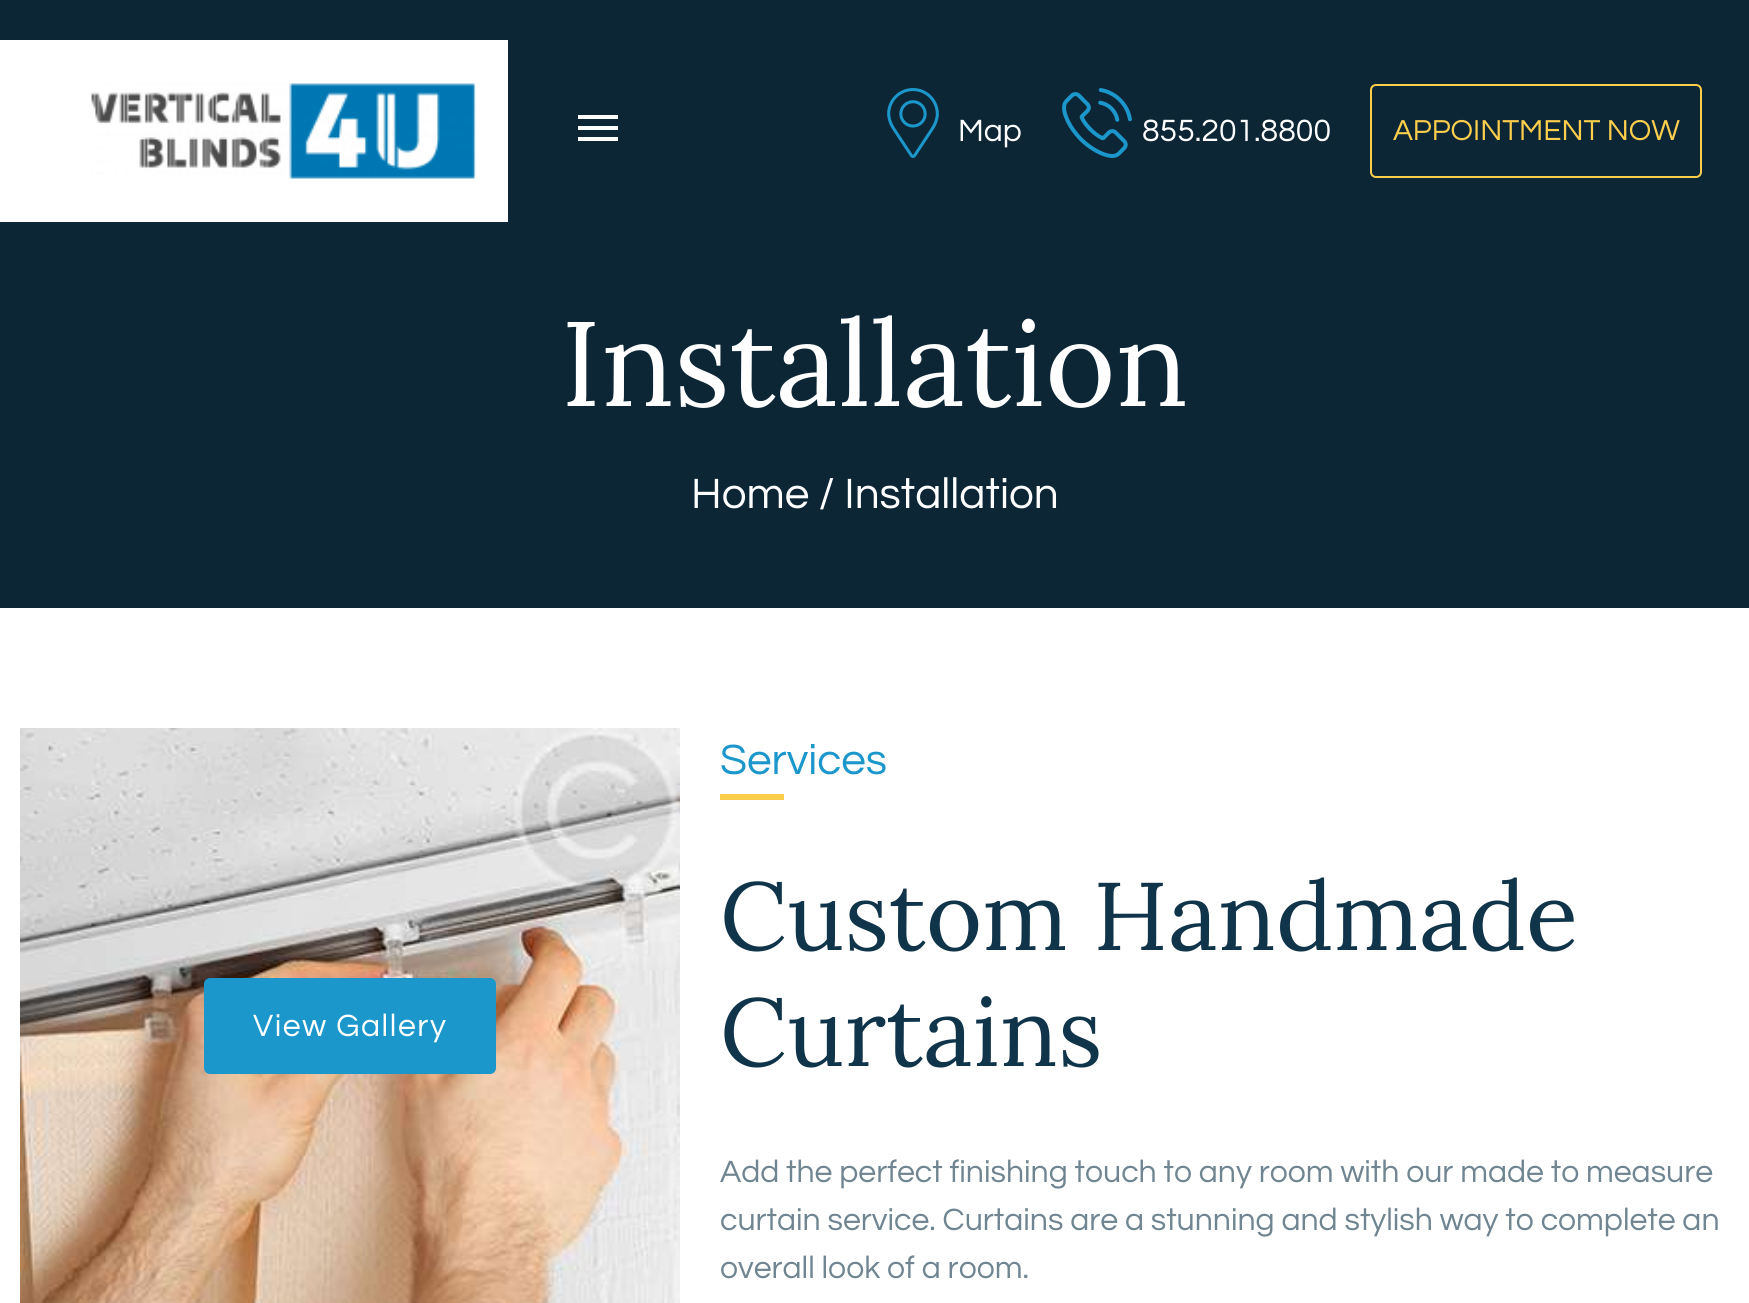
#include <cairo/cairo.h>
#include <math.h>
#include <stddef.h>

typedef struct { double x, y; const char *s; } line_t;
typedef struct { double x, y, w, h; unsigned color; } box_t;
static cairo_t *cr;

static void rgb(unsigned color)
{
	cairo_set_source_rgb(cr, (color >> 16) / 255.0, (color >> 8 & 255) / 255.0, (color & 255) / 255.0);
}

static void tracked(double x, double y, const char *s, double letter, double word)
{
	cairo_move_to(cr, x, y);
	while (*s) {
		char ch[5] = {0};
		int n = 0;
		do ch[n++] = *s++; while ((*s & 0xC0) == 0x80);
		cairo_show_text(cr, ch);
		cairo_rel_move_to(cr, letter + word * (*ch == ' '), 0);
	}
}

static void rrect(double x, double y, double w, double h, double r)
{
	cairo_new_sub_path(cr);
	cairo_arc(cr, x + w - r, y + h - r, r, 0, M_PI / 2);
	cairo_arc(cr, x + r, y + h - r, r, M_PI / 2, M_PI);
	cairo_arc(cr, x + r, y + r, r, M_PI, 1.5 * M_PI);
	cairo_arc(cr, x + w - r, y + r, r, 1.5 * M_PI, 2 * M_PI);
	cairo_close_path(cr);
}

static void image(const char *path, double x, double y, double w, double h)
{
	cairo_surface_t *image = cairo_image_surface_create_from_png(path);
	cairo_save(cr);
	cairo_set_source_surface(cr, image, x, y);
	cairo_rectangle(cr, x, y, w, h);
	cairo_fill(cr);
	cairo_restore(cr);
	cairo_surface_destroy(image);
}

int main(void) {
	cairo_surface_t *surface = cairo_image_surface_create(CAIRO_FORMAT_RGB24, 1749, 1303);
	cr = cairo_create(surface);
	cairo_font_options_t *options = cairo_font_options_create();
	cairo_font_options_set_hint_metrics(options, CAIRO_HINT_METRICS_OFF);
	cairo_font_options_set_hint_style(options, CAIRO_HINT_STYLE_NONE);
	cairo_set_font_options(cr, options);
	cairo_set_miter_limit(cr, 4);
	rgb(0xffffff);
	cairo_paint(cr);
	rgb(0x0c2636);
	cairo_rectangle(cr, 0, 0, 1749, 608);
	cairo_fill(cr);
	rgb(0xffffff);
	cairo_rectangle(cr, 0, 40, 508, 182);
	cairo_fill(cr);
	image("img/1.png", 90, 83, 387, 96);
	{
		static const box_t items[] = {
			{578, 137, 40, 4, 0xffffff},
			{578, 126, 40, 4, 0xffffff},
			{578, 115, 40, 4, 0xffffff},
		};
		for (size_t i = 0; i < sizeof items / sizeof *items; i++) {
			rgb(items[i].color);
			cairo_rectangle(cr, items[i].x, items[i].y, items[i].w, items[i].h);
			cairo_fill(cr);
		}
	}
	image("img/2.png", 887, 88, 52, 70);
	image("img/3.png", 1062, 88, 70, 70);
	rrect(1371, 85, 330, 92, 5);
	rgb(0xfdce4b);
	cairo_stroke(cr);
	image("img/4.png", 20, 728, 660, 575);
	rgb(0x1c97cb);
	rrect(204, 978, 292, 96, 6);
	cairo_fill(cr);
	rgb(0xfdce4b);
	cairo_rectangle(cr, 720, 794, 64, 6);
	cairo_fill(cr);
	cairo_select_font_face(cr, "Questrial", CAIRO_FONT_SLANT_NORMAL, CAIRO_FONT_WEIGHT_NORMAL);
	cairo_set_font_size(cr, 32);
	rgb(0xffffff);
	cairo_move_to(cr, 958, 141);
	cairo_show_text(cr, "Map");
	cairo_move_to(cr, 1142, 141);
	cairo_show_text(cr, "855.201.8800");
	cairo_set_font_size(cr, 30);
	rgb(0xfdce4b);
	cairo_move_to(cr, 1393, 140);
	cairo_show_text(cr, "APPOINTMENT NOW");
	cairo_select_font_face(cr, "Lora", CAIRO_FONT_SLANT_NORMAL, CAIRO_FONT_WEIGHT_NORMAL);
	cairo_set_font_size(cr, 120);
	rgb(0xffffff);
	cairo_move_to(cr, 561, 406);
	cairo_show_text(cr, "Installation");
	cairo_select_font_face(cr, "Questrial", CAIRO_FONT_SLANT_NORMAL, CAIRO_FONT_WEIGHT_NORMAL);
	cairo_set_font_size(cr, 44);
	cairo_move_to(cr, 691, 508);
	cairo_show_text(cr, "Home / Installation");
	cairo_set_font_size(cr, 32);
	tracked(253, 1036, "View Gallery", 1.6, 0);
	cairo_set_font_size(cr, 44);
	rgb(0x1c97cb);
	cairo_move_to(cr, 720, 774);
	cairo_show_text(cr, "Services");
	cairo_select_font_face(cr, "Lora", CAIRO_FONT_SLANT_NORMAL, CAIRO_FONT_WEIGHT_NORMAL);
	cairo_set_font_size(cr, 96);
	rgb(0x103449);
	cairo_move_to(cr, 720, 950);
	cairo_show_text(cr, "Custom Handmade");
	cairo_move_to(cr, 720, 1066);
	cairo_show_text(cr, "Curtains");
	cairo_select_font_face(cr, "Questrial", CAIRO_FONT_SLANT_NORMAL, CAIRO_FONT_WEIGHT_NORMAL);
	cairo_set_font_size(cr, 32);
	rgb(0x708592);
	{
		static const line_t items[] = {
			{720, 1182, "Add the perfect finishing touch to any room with our made to measure"},
			{720, 1230, "curtain service. Curtains are a stunning and stylish way to complete an"},
			{720, 1278, "overall look of a room."},
		};
		for (size_t i = 0; i < sizeof items / sizeof *items; i++) {
			cairo_move_to(cr, items[i].x, items[i].y);
			cairo_show_text(cr, items[i].s);
		}
	}
	cairo_surface_write_to_png(surface, "page.png");
	cairo_font_options_destroy(options);
	cairo_destroy(cr);
	cairo_surface_destroy(surface);
	return 0;
}
